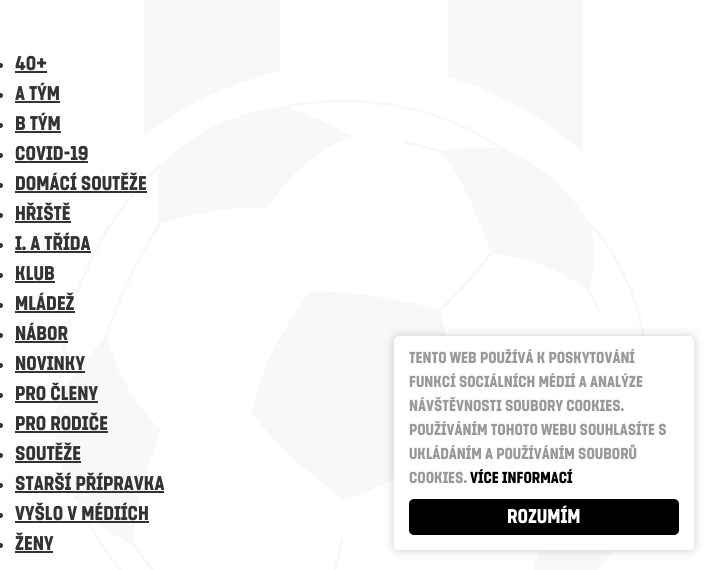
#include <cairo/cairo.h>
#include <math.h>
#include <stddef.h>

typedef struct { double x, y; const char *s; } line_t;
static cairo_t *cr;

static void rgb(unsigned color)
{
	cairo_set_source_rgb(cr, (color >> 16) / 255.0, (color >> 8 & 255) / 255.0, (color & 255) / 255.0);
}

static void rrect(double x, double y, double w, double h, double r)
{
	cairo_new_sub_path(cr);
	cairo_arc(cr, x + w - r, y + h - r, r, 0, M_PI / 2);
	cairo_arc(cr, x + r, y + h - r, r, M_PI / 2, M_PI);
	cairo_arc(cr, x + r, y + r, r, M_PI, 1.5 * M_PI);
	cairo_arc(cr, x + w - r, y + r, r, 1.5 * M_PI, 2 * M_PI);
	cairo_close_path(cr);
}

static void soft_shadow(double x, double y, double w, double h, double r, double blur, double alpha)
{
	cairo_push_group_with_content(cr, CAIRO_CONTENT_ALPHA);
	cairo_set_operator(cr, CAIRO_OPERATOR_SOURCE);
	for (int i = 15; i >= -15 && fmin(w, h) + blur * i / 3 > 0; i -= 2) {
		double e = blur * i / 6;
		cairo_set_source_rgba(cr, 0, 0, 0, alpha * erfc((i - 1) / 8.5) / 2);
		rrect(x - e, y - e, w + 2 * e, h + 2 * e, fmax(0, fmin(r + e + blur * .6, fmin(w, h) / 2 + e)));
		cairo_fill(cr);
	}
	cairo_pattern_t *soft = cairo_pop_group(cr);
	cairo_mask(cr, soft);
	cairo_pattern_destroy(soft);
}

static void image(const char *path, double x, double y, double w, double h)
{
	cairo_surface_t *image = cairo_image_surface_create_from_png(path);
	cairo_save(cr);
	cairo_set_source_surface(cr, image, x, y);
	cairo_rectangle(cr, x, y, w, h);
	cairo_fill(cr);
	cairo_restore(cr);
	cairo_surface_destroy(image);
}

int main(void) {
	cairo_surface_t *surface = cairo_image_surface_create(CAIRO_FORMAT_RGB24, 714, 570);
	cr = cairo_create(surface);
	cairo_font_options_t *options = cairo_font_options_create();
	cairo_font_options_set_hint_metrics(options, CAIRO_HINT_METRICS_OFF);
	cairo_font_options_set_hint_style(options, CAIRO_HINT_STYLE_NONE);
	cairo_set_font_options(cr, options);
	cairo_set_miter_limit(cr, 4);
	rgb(0xffffff);
	cairo_paint(cr);
	image("img/1.png", 56, 0, 597, 570);
	rgb(0x333333);
	cairo_arc(cr, 0.5, 65.5, 2.5, 0, 2 * M_PI);
	cairo_fill(cr);
	cairo_rectangle(cr, 15, 71, 32, 2);
	cairo_fill(cr);
	cairo_arc(cr, 0.5, 95.5, 2.5, 0, 2 * M_PI);
	cairo_fill(cr);
	cairo_rectangle(cr, 15, 101, 45, 2);
	cairo_fill(cr);
	cairo_arc(cr, 0.5, 125.5, 2.5, 0, 2 * M_PI);
	cairo_fill(cr);
	cairo_rectangle(cr, 15, 131, 46, 2);
	cairo_fill(cr);
	cairo_arc(cr, 0.5, 155.5, 2.5, 0, 2 * M_PI);
	cairo_fill(cr);
	cairo_rectangle(cr, 15, 161, 73, 2);
	cairo_fill(cr);
	cairo_arc(cr, 0.5, 185.5, 2.5, 0, 2 * M_PI);
	cairo_fill(cr);
	cairo_rectangle(cr, 15, 191, 132, 2);
	cairo_fill(cr);
	cairo_arc(cr, 0.5, 215.5, 2.5, 0, 2 * M_PI);
	cairo_fill(cr);
	cairo_rectangle(cr, 15, 221, 56, 2);
	cairo_fill(cr);
	cairo_arc(cr, 0.5, 245.5, 2.5, 0, 2 * M_PI);
	cairo_fill(cr);
	cairo_rectangle(cr, 15, 251, 76, 2);
	cairo_fill(cr);
	cairo_arc(cr, 0.5, 275.5, 2.5, 0, 2 * M_PI);
	cairo_fill(cr);
	cairo_rectangle(cr, 15, 281, 40, 2);
	cairo_fill(cr);
	cairo_arc(cr, 0.5, 305.5, 2.5, 0, 2 * M_PI);
	cairo_fill(cr);
	cairo_rectangle(cr, 15, 311, 60, 2);
	cairo_fill(cr);
	cairo_arc(cr, 0.5, 335.5, 2.5, 0, 2 * M_PI);
	cairo_fill(cr);
	cairo_rectangle(cr, 15, 341, 53, 2);
	cairo_fill(cr);
	cairo_arc(cr, 0.5, 365.5, 2.5, 0, 2 * M_PI);
	cairo_fill(cr);
	cairo_rectangle(cr, 15, 371, 70, 2);
	cairo_fill(cr);
	cairo_arc(cr, 0.5, 395.5, 2.5, 0, 2 * M_PI);
	cairo_fill(cr);
	cairo_rectangle(cr, 15, 401, 83, 2);
	cairo_fill(cr);
	cairo_arc(cr, 0.5, 425.5, 2.5, 0, 2 * M_PI);
	cairo_fill(cr);
	cairo_rectangle(cr, 15, 431, 93, 2);
	cairo_fill(cr);
	cairo_arc(cr, 0.5, 455.5, 2.5, 0, 2 * M_PI);
	cairo_fill(cr);
	cairo_rectangle(cr, 15, 461, 66, 2);
	cairo_fill(cr);
	cairo_arc(cr, 0.5, 485.5, 2.5, 0, 2 * M_PI);
	cairo_fill(cr);
	cairo_rectangle(cr, 15, 491, 149, 2);
	cairo_fill(cr);
	cairo_arc(cr, 0.5, 515.5, 2.5, 0, 2 * M_PI);
	cairo_fill(cr);
	cairo_rectangle(cr, 15, 521, 134, 2);
	cairo_fill(cr);
	cairo_arc(cr, 0.5, 545.5, 2.5, 0, 2 * M_PI);
	cairo_fill(cr);
	cairo_rectangle(cr, 15, 551, 38, 2);
	cairo_fill(cr);
	rgb(0x000000);
	soft_shadow(394, 336, 300, 214, 5, 5, 0.2);
	rgb(0xffffff);
	rrect(394, 336, 300, 214, 5);
	cairo_fill(cr);
	rgb(0x000000);
	rrect(409, 499, 270, 36, 5);
	cairo_fill(cr);
	cairo_select_font_face(cr, "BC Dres", CAIRO_FONT_SLANT_NORMAL, CAIRO_FONT_WEIGHT_NORMAL);
	cairo_set_font_size(cr, 20);
	rgb(0x333333);
	{
		static const line_t items[] = {
			{15, 70, "40+"},
			{15, 100, "A TÝM"},
			{15, 130, "B TÝM"},
			{15, 160, "COVID-19"},
			{15, 190, "DOMÁCÍ SOUTĚŽE"},
			{15, 220, "HŘIŠTĚ"},
			{15, 250, "I. A TŘÍDA"},
			{15, 280, "KLUB"},
			{15, 310, "MLÁDEŽ"},
			{15, 340, "NÁBOR"},
			{15, 370, "NOVINKY"},
			{15, 400, "PRO ČLENY"},
			{15, 430, "PRO RODIČE"},
			{15, 460, "SOUTĚŽE"},
			{15, 490, "STARŠÍ PŘÍPRAVKA"},
			{15, 520, "VYŠLO V MÉDIÍCH"},
			{15, 550, "ŽENY"},
		};
		for (size_t i = 0; i < sizeof items / sizeof *items; i++) {
			cairo_move_to(cr, items[i].x, items[i].y);
			cairo_show_text(cr, items[i].s);
		}
	}
	cairo_set_font_size(cr, 16);
	rgb(0x999999);
	{
		static const line_t items[] = {
			{409, 363, "TENTO WEB POUŽÍVÁ K POSKYTOVÁNÍ"},
			{409, 387, "FUNKCÍ SOCIÁLNÍCH MÉDIÍ A ANALÝZE"},
			{409, 411, "NÁVŠTĚVNOSTI SOUBORY COOKIES."},
			{409, 435, "POUŽÍVÁNÍM TOHOTO WEBU SOUHLASÍTE S"},
			{409, 459, "UKLÁDÁNÍM A POUŽÍVÁNÍM SOUBORŮ"},
			{409, 483, "COOKIES."},
		};
		for (size_t i = 0; i < sizeof items / sizeof *items; i++) {
			cairo_move_to(cr, items[i].x, items[i].y);
			cairo_show_text(cr, items[i].s);
		}
	}
	rgb(0x000000);
	cairo_move_to(cr, 470, 483);
	cairo_show_text(cr, "VÍCE INFORMACÍ");
	cairo_set_font_size(cr, 20);
	rgb(0xffffff);
	cairo_move_to(cr, 507, 523);
	cairo_show_text(cr, "ROZUMÍM");
	cairo_surface_write_to_png(surface, "page.png");
	cairo_font_options_destroy(options);
	cairo_destroy(cr);
	cairo_surface_destroy(surface);
	return 0;
}
